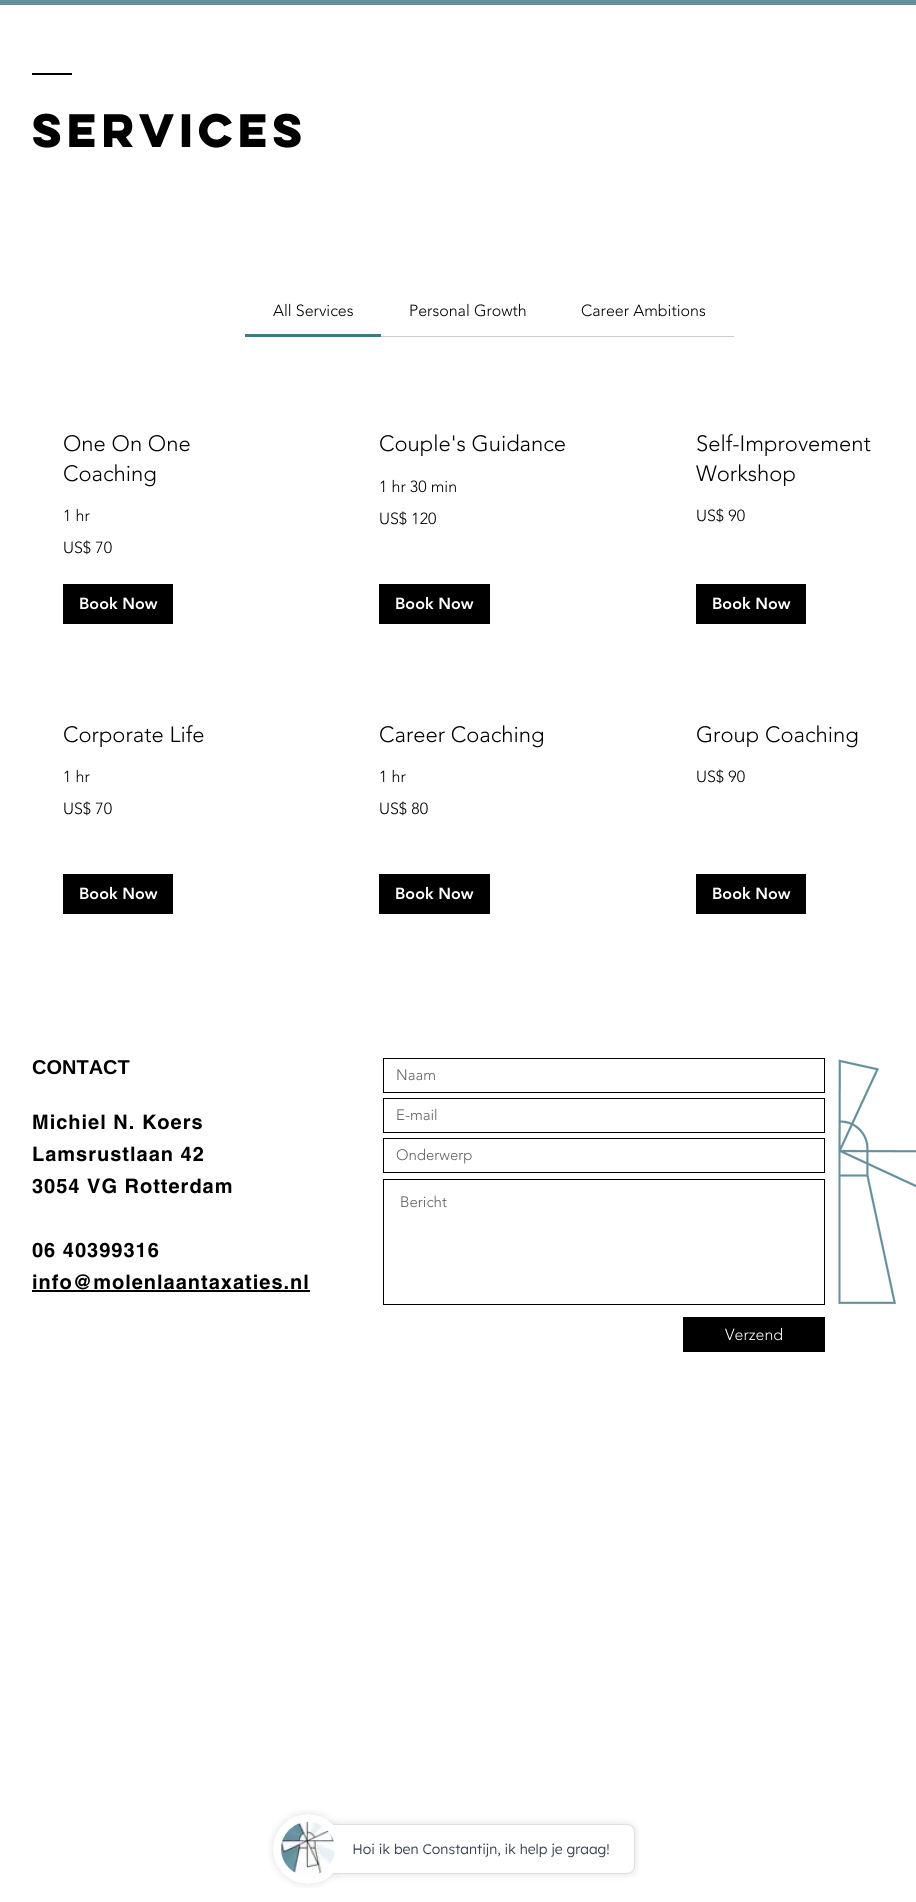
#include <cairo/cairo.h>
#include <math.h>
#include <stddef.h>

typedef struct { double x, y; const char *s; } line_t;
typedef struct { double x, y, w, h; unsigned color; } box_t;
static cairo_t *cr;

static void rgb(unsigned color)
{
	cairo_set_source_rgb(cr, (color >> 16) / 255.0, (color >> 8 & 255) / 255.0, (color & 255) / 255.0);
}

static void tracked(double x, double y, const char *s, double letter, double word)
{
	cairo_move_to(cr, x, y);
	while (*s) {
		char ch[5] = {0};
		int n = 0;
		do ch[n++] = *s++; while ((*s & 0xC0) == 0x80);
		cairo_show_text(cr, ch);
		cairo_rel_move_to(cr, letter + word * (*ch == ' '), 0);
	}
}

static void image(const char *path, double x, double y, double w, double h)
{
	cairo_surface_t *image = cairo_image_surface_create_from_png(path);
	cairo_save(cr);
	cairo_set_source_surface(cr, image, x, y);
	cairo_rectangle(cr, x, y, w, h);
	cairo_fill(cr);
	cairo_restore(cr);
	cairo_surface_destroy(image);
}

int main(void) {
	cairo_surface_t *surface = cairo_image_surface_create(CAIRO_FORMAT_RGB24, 916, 1902);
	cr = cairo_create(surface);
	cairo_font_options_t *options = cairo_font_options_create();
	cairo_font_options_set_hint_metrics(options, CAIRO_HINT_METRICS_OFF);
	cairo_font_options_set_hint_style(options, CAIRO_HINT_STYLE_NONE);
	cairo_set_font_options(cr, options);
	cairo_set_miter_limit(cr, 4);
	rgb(0xffffff);
	cairo_paint(cr);
	{
		static const box_t items[] = {
			{0, 0, 916, 5, 0x668e9d},
			{32, 73, 40, 2, 0x000000},
			{245, 334, 136, 3, 0x3a7c80},
			{381, 336, 353, 1, 0xcccccc},
			{63, 584, 110, 40, 0x000000},
			{379, 584, 111, 40, 0x000000},
			{696, 584, 110, 40, 0x000000},
			{63, 874, 110, 40, 0x000000},
			{379, 874, 111, 40, 0x000000},
			{696, 874, 110, 40, 0x000000},
		};
		for (size_t i = 0; i < sizeof items / sizeof *items; i++) {
			rgb(items[i].color);
			cairo_rectangle(cr, items[i].x, items[i].y, items[i].w, items[i].h);
			cairo_fill(cr);
		}
	}
	image("img/1.png", 838, 1059, 78, 246);
	cairo_rectangle(cr, 32, 1290, 278, 2);
	cairo_fill(cr);
	cairo_rectangle(cr, 383.5, 1058.5, 441, 34);
	cairo_set_line_width(cr, 1);
	cairo_stroke(cr);
	cairo_rectangle(cr, 383.5, 1098.5, 441, 34);
	cairo_stroke(cr);
	cairo_rectangle(cr, 383.5, 1138.5, 441, 34);
	cairo_stroke(cr);
	cairo_rectangle(cr, 383.5, 1179.5, 441, 125);
	cairo_stroke(cr);
	cairo_rectangle(cr, 683, 1317, 142, 35);
	cairo_fill(cr);
	image("img/2.png", 269, 1810, 370, 78);
	cairo_select_font_face(cr, "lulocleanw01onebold", CAIRO_FONT_SLANT_NORMAL, CAIRO_FONT_WEIGHT_BOLD);
	cairo_set_font_size(cr, 42);
	tracked(32, 147, "SERVICES", -4.25, 0);
	cairo_select_font_face(cr, "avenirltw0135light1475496 Light", CAIRO_FONT_SLANT_NORMAL, CAIRO_FONT_WEIGHT_NORMAL);
	cairo_set_font_size(cr, 16);
	{
		static const line_t items[] = {
			{273, 316, "All Services"},
			{409, 316, "Personal Growth"},
			{581, 316, "Career Ambitions"},
		};
		for (size_t i = 0; i < sizeof items / sizeof *items; i++) {
			cairo_move_to(cr, items[i].x, items[i].y);
			cairo_show_text(cr, items[i].s);
		}
	}
	cairo_set_font_size(cr, 22);
	cairo_move_to(cr, 63, 451);
	cairo_show_text(cr, "One On One");
	cairo_move_to(cr, 63, 481);
	cairo_show_text(cr, "Coaching");
	cairo_set_font_size(cr, 16);
	cairo_move_to(cr, 63, 521);
	cairo_show_text(cr, "1 hr");
	cairo_move_to(cr, 63, 553);
	cairo_show_text(cr, "US$ 70");
	cairo_select_font_face(cr, "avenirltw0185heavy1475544 Black", CAIRO_FONT_SLANT_NORMAL, CAIRO_FONT_WEIGHT_NORMAL);
	rgb(0xffffff);
	cairo_move_to(cr, 79, 609);
	cairo_show_text(cr, "Book Now");
	cairo_select_font_face(cr, "avenirltw0135light1475496 Light", CAIRO_FONT_SLANT_NORMAL, CAIRO_FONT_WEIGHT_NORMAL);
	cairo_set_font_size(cr, 22);
	rgb(0x000000);
	cairo_move_to(cr, 379, 451);
	cairo_show_text(cr, "Couple's Guidance");
	cairo_set_font_size(cr, 16);
	cairo_move_to(cr, 379, 492);
	cairo_show_text(cr, "1 hr 30 min");
	cairo_move_to(cr, 379, 524);
	cairo_show_text(cr, "US$ 120");
	cairo_select_font_face(cr, "avenirltw0185heavy1475544 Black", CAIRO_FONT_SLANT_NORMAL, CAIRO_FONT_WEIGHT_NORMAL);
	rgb(0xffffff);
	cairo_move_to(cr, 395, 609);
	cairo_show_text(cr, "Book Now");
	cairo_select_font_face(cr, "avenirltw0135light1475496 Light", CAIRO_FONT_SLANT_NORMAL, CAIRO_FONT_WEIGHT_NORMAL);
	cairo_set_font_size(cr, 22);
	rgb(0x000000);
	cairo_move_to(cr, 696, 451);
	cairo_show_text(cr, "Self-Improvement");
	cairo_move_to(cr, 696, 481);
	cairo_show_text(cr, "Workshop");
	cairo_set_font_size(cr, 16);
	cairo_move_to(cr, 696, 521);
	cairo_show_text(cr, "US$ 90");
	cairo_select_font_face(cr, "avenirltw0185heavy1475544 Black", CAIRO_FONT_SLANT_NORMAL, CAIRO_FONT_WEIGHT_NORMAL);
	rgb(0xffffff);
	cairo_move_to(cr, 712, 609);
	cairo_show_text(cr, "Book Now");
	cairo_select_font_face(cr, "avenirltw0135light1475496 Light", CAIRO_FONT_SLANT_NORMAL, CAIRO_FONT_WEIGHT_NORMAL);
	cairo_set_font_size(cr, 22);
	rgb(0x000000);
	cairo_move_to(cr, 63, 742);
	cairo_show_text(cr, "Corporate Life");
	cairo_set_font_size(cr, 16);
	cairo_move_to(cr, 63, 782);
	cairo_show_text(cr, "1 hr");
	cairo_move_to(cr, 63, 814);
	cairo_show_text(cr, "US$ 70");
	cairo_select_font_face(cr, "avenirltw0185heavy1475544 Black", CAIRO_FONT_SLANT_NORMAL, CAIRO_FONT_WEIGHT_NORMAL);
	rgb(0xffffff);
	cairo_move_to(cr, 79, 899);
	cairo_show_text(cr, "Book Now");
	cairo_select_font_face(cr, "avenirltw0135light1475496 Light", CAIRO_FONT_SLANT_NORMAL, CAIRO_FONT_WEIGHT_NORMAL);
	cairo_set_font_size(cr, 22);
	rgb(0x000000);
	cairo_move_to(cr, 379, 742);
	cairo_show_text(cr, "Career Coaching");
	cairo_set_font_size(cr, 16);
	cairo_move_to(cr, 379, 782);
	cairo_show_text(cr, "1 hr");
	cairo_move_to(cr, 379, 814);
	cairo_show_text(cr, "US$ 80");
	cairo_select_font_face(cr, "avenirltw0185heavy1475544 Black", CAIRO_FONT_SLANT_NORMAL, CAIRO_FONT_WEIGHT_NORMAL);
	rgb(0xffffff);
	cairo_move_to(cr, 395, 899);
	cairo_show_text(cr, "Book Now");
	cairo_select_font_face(cr, "avenirltw0135light1475496 Light", CAIRO_FONT_SLANT_NORMAL, CAIRO_FONT_WEIGHT_NORMAL);
	cairo_set_font_size(cr, 22);
	rgb(0x000000);
	cairo_move_to(cr, 696, 742);
	cairo_show_text(cr, "Group Coaching");
	cairo_set_font_size(cr, 16);
	cairo_move_to(cr, 696, 782);
	cairo_show_text(cr, "US$ 90");
	cairo_select_font_face(cr, "avenirltw0185heavy1475544 Black", CAIRO_FONT_SLANT_NORMAL, CAIRO_FONT_WEIGHT_NORMAL);
	rgb(0xffffff);
	cairo_move_to(cr, 712, 899);
	cairo_show_text(cr, "Book Now");
	cairo_select_font_face(cr, "Liberation Sans", CAIRO_FONT_SLANT_NORMAL, CAIRO_FONT_WEIGHT_BOLD);
	cairo_set_font_size(cr, 20);
	rgb(0x000000);
	cairo_move_to(cr, 32, 1074);
	cairo_show_text(cr, "CONTACT");
	cairo_select_font_face(cr, "helvetica", CAIRO_FONT_SLANT_NORMAL, CAIRO_FONT_WEIGHT_BOLD);
	{
		static const line_t items[] = {
			{32, 1129, "Michiel N. Koers"},
			{32, 1161, "Lamsrustlaan 42"},
			{32, 1193, "3054 VG Rotterdam"},
			{32, 1257, "06 40399316"},
			{32, 1289, "info@molenlaantaxaties.nl"},
		};
		for (size_t i = 0; i < sizeof items / sizeof *items; i++) {
			tracked(items[i].x, items[i].y, items[i].s, 1, 0);
		}
	}
	cairo_select_font_face(cr, "avenirltw0135light1475496 Light", CAIRO_FONT_SLANT_NORMAL, CAIRO_FONT_WEIGHT_NORMAL);
	cairo_set_font_size(cr, 15);
	rgb(0x605e5e);
	{
		static const line_t items[] = {
			{396, 1080, "Naam"},
			{396, 1120, "E-mail"},
			{396, 1160, "Onderwerp"},
			{400, 1207, "Bericht"},
		};
		for (size_t i = 0; i < sizeof items / sizeof *items; i++) {
			cairo_move_to(cr, items[i].x, items[i].y);
			cairo_show_text(cr, items[i].s);
		}
	}
	cairo_set_font_size(cr, 16);
	rgb(0xffffff);
	cairo_move_to(cr, 725, 1340);
	cairo_show_text(cr, "Verzend");
	cairo_surface_write_to_png(surface, "page.png");
	cairo_font_options_destroy(options);
	cairo_destroy(cr);
	cairo_surface_destroy(surface);
	return 0;
}
